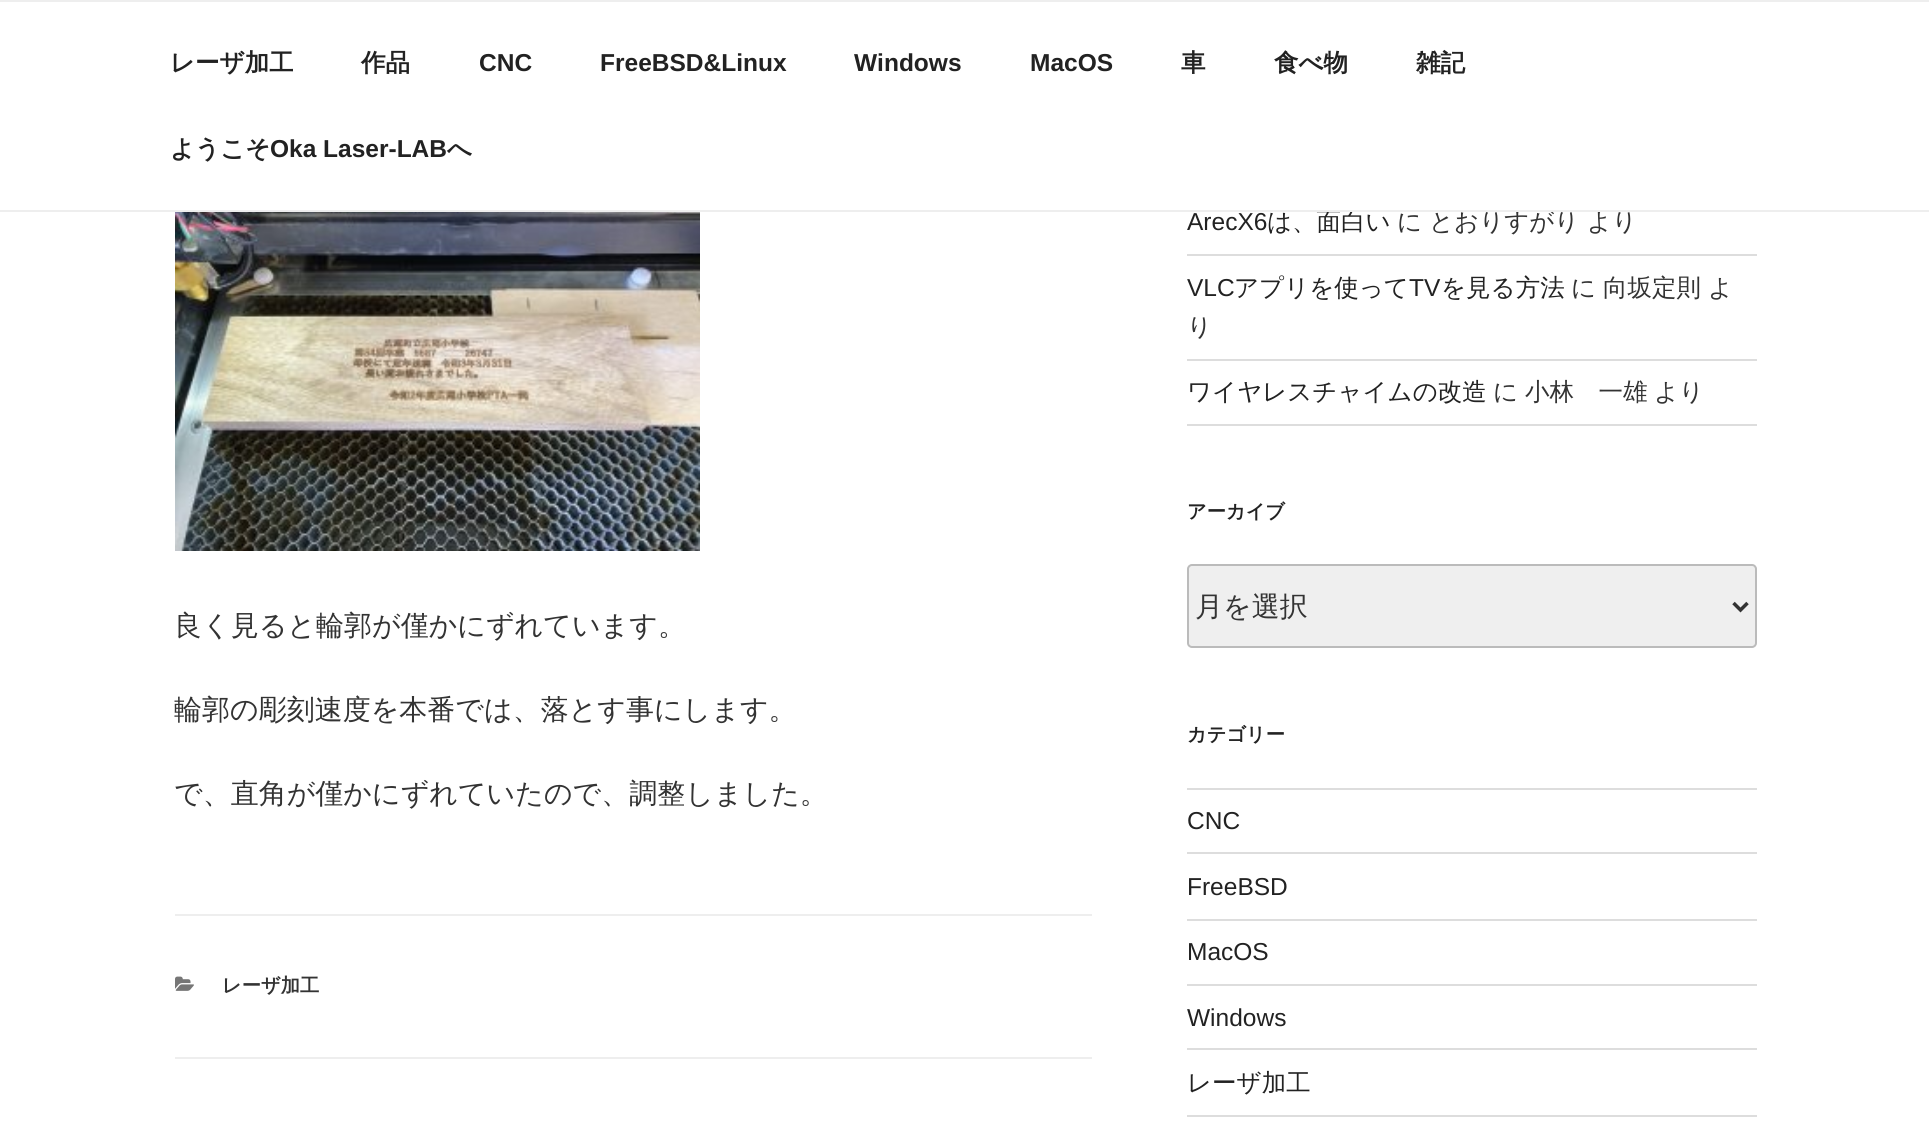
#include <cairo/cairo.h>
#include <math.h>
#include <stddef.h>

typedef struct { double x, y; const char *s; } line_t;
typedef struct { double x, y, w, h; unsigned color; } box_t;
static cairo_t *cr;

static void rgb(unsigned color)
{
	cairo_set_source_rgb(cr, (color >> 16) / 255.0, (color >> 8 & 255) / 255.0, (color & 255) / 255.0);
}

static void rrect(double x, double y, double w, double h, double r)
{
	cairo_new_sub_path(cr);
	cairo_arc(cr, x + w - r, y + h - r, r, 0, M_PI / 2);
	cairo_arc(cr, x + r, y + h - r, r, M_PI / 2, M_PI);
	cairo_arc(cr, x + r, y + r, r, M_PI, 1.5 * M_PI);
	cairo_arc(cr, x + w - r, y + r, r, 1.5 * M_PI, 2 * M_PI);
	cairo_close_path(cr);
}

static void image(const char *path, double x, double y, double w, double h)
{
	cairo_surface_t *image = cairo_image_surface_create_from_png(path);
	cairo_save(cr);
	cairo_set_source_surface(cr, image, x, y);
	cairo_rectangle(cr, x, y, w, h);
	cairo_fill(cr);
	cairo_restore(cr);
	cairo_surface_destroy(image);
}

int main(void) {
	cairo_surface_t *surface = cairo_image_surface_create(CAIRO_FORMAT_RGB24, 1929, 1138);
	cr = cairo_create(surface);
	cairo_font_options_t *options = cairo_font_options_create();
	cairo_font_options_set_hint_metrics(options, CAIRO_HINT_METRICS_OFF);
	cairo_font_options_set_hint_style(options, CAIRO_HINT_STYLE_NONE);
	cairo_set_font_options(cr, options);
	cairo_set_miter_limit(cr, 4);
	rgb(0xffffff);
	cairo_paint(cr);
	rgb(0xeeeeee);
	cairo_rectangle(cr, 0, 0, 1929, 2);
	cairo_fill(cr);
	image("img/1.png", 175, 212, 525, 339);
	cairo_rectangle(cr, 175, 914, 917, 2);
	cairo_fill(cr);
	cairo_rectangle(cr, 175, 1057, 917, 2);
	cairo_fill(cr);
	image("img/2.png", 175, 976, 19, 15);
	{
		static const box_t items[] = {
			{1187, 254, 570, 2, 0xdddddd},
			{1187, 359, 570, 2, 0xdddddd},
			{1187, 424, 570, 2, 0xdddddd},
		};
		for (size_t i = 0; i < sizeof items / sizeof *items; i++) {
			rgb(items[i].color);
			cairo_rectangle(cr, items[i].x, items[i].y, items[i].w, items[i].h);
			cairo_fill(cr);
		}
	}
	rgb(0xefefef);
	rrect(1188, 565, 568, 82, 4);
	cairo_fill_preserve(cr);
	rgb(0xbbbbbb);
	cairo_stroke(cr);
	cairo_new_path(cr);
	cairo_move_to(cr, 1733.5, 603);
	cairo_line_to(cr, 1740.5, 610);
	cairo_line_to(cr, 1747.5, 603);
	rgb(0x333333);
	cairo_set_line_width(cr, 3.5);
	cairo_stroke(cr);
	{
		static const box_t items[] = {
			{1187, 788, 570, 2, 0xdddddd},
			{1187, 852, 570, 2, 0xdddddd},
			{1187, 919, 570, 2, 0xdddddd},
			{1187, 984, 570, 2, 0xdddddd},
			{1187, 1048, 570, 2, 0xdddddd},
			{1187, 1115, 570, 2, 0xdddddd},
		};
		for (size_t i = 0; i < sizeof items / sizeof *items; i++) {
			rgb(items[i].color);
			cairo_rectangle(cr, items[i].x, items[i].y, items[i].w, items[i].h);
			cairo_fill(cr);
		}
	}
	cairo_select_font_face(cr, "WenQuanYi Zen Hei", CAIRO_FONT_SLANT_NORMAL, CAIRO_FONT_WEIGHT_BOLD);
	cairo_set_font_size(cr, 24.5);
	rgb(0x222222);
	cairo_move_to(cr, 170, 71);
	cairo_show_text(cr, "レーザ加工");
	cairo_move_to(cr, 361, 71);
	cairo_show_text(cr, "作品");
	cairo_select_font_face(cr, "Liberation Sans", CAIRO_FONT_SLANT_NORMAL, CAIRO_FONT_WEIGHT_BOLD);
	{
		static const line_t items[] = {
			{479, 71, "CNC"},
			{600, 71, "FreeBSD&Linux"},
			{854, 71, "Windows"},
			{1030, 71, "MacOS"},
		};
		for (size_t i = 0; i < sizeof items / sizeof *items; i++) {
			cairo_move_to(cr, items[i].x, items[i].y);
			cairo_show_text(cr, items[i].s);
		}
	}
	cairo_select_font_face(cr, "WenQuanYi Zen Hei", CAIRO_FONT_SLANT_NORMAL, CAIRO_FONT_WEIGHT_BOLD);
	{
		static const line_t items[] = {
			{1181, 71, "車"},
			{1274, 71, "食べ物"},
			{1416, 71, "雑記"},
			{170, 157, "ようこそ"},
		};
		for (size_t i = 0; i < sizeof items / sizeof *items; i++) {
			cairo_move_to(cr, items[i].x, items[i].y);
			cairo_show_text(cr, items[i].s);
		}
	}
	cairo_select_font_face(cr, "Liberation Sans", CAIRO_FONT_SLANT_NORMAL, CAIRO_FONT_WEIGHT_BOLD);
	cairo_move_to(cr, 270, 157);
	cairo_show_text(cr, "Oka Laser-LAB");
	cairo_select_font_face(cr, "WenQuanYi Zen Hei", CAIRO_FONT_SLANT_NORMAL, CAIRO_FONT_WEIGHT_BOLD);
	cairo_move_to(cr, 447, 157);
	cairo_show_text(cr, "へ");
	cairo_select_font_face(cr, "WenQuanYi Zen Hei Medium", CAIRO_FONT_SLANT_NORMAL, CAIRO_FONT_WEIGHT_NORMAL);
	cairo_set_font_size(cr, 28);
	rgb(0x333333);
	{
		static const line_t items[] = {
			{174, 635, "良く見ると輪郭が僅かにずれています。"},
			{174, 719, "輪郭の彫刻速度を本番では、落とす事にします。"},
			{174, 803, "で、直角が僅かにずれていたので、調整しました。"},
		};
		for (size_t i = 0; i < sizeof items / sizeof *items; i++) {
			cairo_move_to(cr, items[i].x, items[i].y);
			cairo_show_text(cr, items[i].s);
		}
	}
	cairo_select_font_face(cr, "WenQuanYi Zen Hei", CAIRO_FONT_SLANT_NORMAL, CAIRO_FONT_WEIGHT_BOLD);
	cairo_set_font_size(cr, 19.25);
	cairo_move_to(cr, 222, 992);
	cairo_show_text(cr, "レーザ加工");
	cairo_select_font_face(cr, "Liberation Sans", CAIRO_FONT_SLANT_NORMAL, CAIRO_FONT_WEIGHT_NORMAL);
	cairo_set_font_size(cr, 24.5);
	rgb(0x222222);
	cairo_move_to(cr, 1187, 230);
	cairo_show_text(cr, "ArecX6");
	cairo_select_font_face(cr, "WenQuanYi Zen Hei Medium", CAIRO_FONT_SLANT_NORMAL, CAIRO_FONT_WEIGHT_NORMAL);
	cairo_move_to(cr, 1267, 230);
	cairo_show_text(cr, "は、面白い");
	rgb(0x333333);
	{
		static const line_t items[] = {
			{1397, 230, "に"},
			{1429, 230, "とおりすがり"},
			{1587, 230, "より"},
		};
		for (size_t i = 0; i < sizeof items / sizeof *items; i++) {
			cairo_move_to(cr, items[i].x, items[i].y);
			cairo_show_text(cr, items[i].s);
		}
	}
	rgb(0xeeeeee);
	cairo_rectangle(cr, 0, 210, 1929, 2);
	cairo_fill(cr);
	cairo_select_font_face(cr, "Liberation Sans", CAIRO_FONT_SLANT_NORMAL, CAIRO_FONT_WEIGHT_NORMAL);
	rgb(0x222222);
	cairo_move_to(cr, 1187, 296);
	cairo_show_text(cr, "VLC");
	cairo_select_font_face(cr, "WenQuanYi Zen Hei Medium", CAIRO_FONT_SLANT_NORMAL, CAIRO_FONT_WEIGHT_NORMAL);
	cairo_move_to(cr, 1234, 296);
	cairo_show_text(cr, "アプリを使って");
	cairo_select_font_face(cr, "Liberation Sans", CAIRO_FONT_SLANT_NORMAL, CAIRO_FONT_WEIGHT_NORMAL);
	cairo_move_to(cr, 1409, 296);
	cairo_show_text(cr, "TV");
	cairo_select_font_face(cr, "WenQuanYi Zen Hei Medium", CAIRO_FONT_SLANT_NORMAL, CAIRO_FONT_WEIGHT_NORMAL);
	cairo_move_to(cr, 1441, 296);
	cairo_show_text(cr, "を見る方法");
	rgb(0x333333);
	{
		static const line_t items[] = {
			{1571, 296, "に"},
			{1603, 296, "向坂定則"},
			{1708, 296, "よ"},
			{1187, 335, "り"},
		};
		for (size_t i = 0; i < sizeof items / sizeof *items; i++) {
			cairo_move_to(cr, items[i].x, items[i].y);
			cairo_show_text(cr, items[i].s);
		}
	}
	rgb(0x222222);
	cairo_move_to(cr, 1187, 400);
	cairo_show_text(cr, "ワイヤレスチャイムの改造");
	rgb(0x333333);
	{
		static const line_t items[] = {
			{1493, 400, "に"},
			{1525, 400, "小林　一雄"},
			{1654, 400, "より"},
		};
		for (size_t i = 0; i < sizeof items / sizeof *items; i++) {
			cairo_move_to(cr, items[i].x, items[i].y);
			cairo_show_text(cr, items[i].s);
		}
	}
	cairo_select_font_face(cr, "WenQuanYi Zen Hei", CAIRO_FONT_SLANT_NORMAL, CAIRO_FONT_WEIGHT_BOLD);
	cairo_set_font_size(cr, 19.25);
	rgb(0x222222);
	cairo_move_to(cr, 1187, 518);
	cairo_show_text(cr, "アーカイブ");
	cairo_select_font_face(cr, "WenQuanYi Zen Hei Medium", CAIRO_FONT_SLANT_NORMAL, CAIRO_FONT_WEIGHT_NORMAL);
	cairo_set_font_size(cr, 28);
	rgb(0x333333);
	cairo_move_to(cr, 1195, 616);
	cairo_show_text(cr, "月を選択");
	cairo_select_font_face(cr, "WenQuanYi Zen Hei", CAIRO_FONT_SLANT_NORMAL, CAIRO_FONT_WEIGHT_BOLD);
	cairo_set_font_size(cr, 19.25);
	rgb(0x222222);
	cairo_move_to(cr, 1187, 741);
	cairo_show_text(cr, "カテゴリー");
	cairo_select_font_face(cr, "Liberation Sans", CAIRO_FONT_SLANT_NORMAL, CAIRO_FONT_WEIGHT_NORMAL);
	cairo_set_font_size(cr, 24.5);
	{
		static const line_t items[] = {
			{1187, 829, "CNC"},
			{1187, 895, "FreeBSD"},
			{1187, 960, "MacOS"},
			{1187, 1026, "Windows"},
		};
		for (size_t i = 0; i < sizeof items / sizeof *items; i++) {
			cairo_move_to(cr, items[i].x, items[i].y);
			cairo_show_text(cr, items[i].s);
		}
	}
	cairo_select_font_face(cr, "WenQuanYi Zen Hei Medium", CAIRO_FONT_SLANT_NORMAL, CAIRO_FONT_WEIGHT_NORMAL);
	cairo_move_to(cr, 1187, 1091);
	cairo_show_text(cr, "レーザ加工");
	cairo_surface_write_to_png(surface, "page.png");
	cairo_font_options_destroy(options);
	cairo_destroy(cr);
	cairo_surface_destroy(surface);
	return 0;
}
